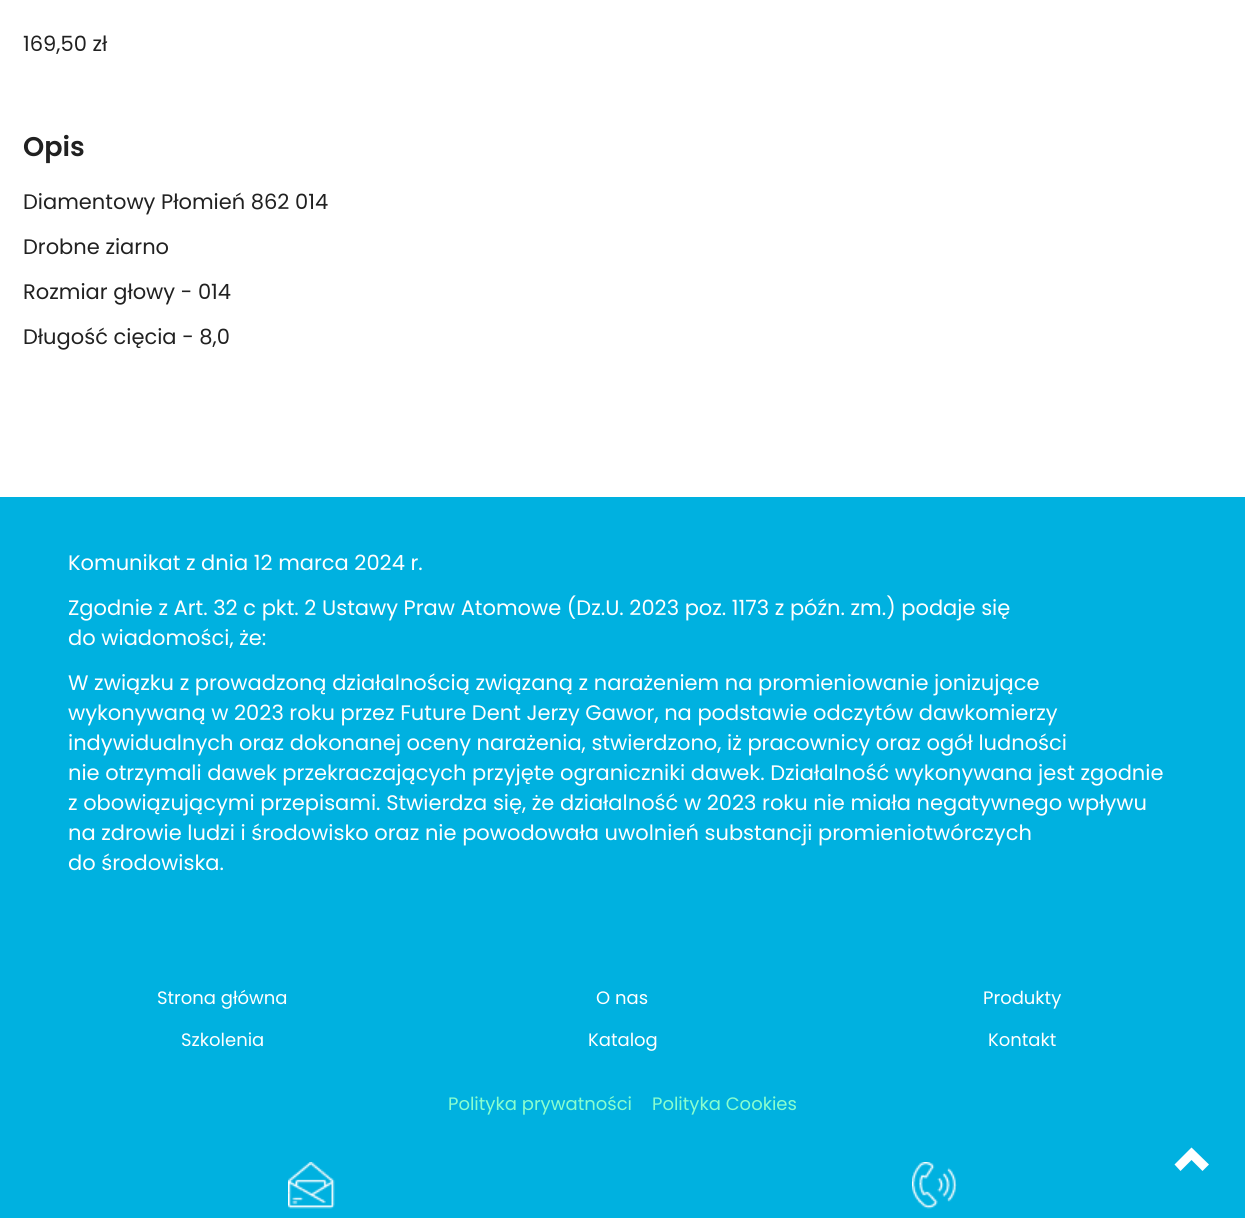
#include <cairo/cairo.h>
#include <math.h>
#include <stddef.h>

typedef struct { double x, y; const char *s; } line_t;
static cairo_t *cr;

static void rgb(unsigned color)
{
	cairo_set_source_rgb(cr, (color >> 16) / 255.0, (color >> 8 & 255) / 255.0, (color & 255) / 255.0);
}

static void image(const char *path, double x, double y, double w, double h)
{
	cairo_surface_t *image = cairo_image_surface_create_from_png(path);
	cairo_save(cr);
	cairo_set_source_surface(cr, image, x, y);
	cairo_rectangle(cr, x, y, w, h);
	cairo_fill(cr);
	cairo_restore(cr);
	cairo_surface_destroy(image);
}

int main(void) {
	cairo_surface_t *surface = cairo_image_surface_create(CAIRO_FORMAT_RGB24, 1245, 1218);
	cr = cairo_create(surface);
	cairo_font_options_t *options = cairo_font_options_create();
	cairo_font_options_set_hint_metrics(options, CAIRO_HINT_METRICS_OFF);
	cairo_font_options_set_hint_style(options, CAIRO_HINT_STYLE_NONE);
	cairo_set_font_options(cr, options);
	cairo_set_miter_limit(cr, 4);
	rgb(0xffffff);
	cairo_paint(cr);
	rgb(0x00b1e0);
	cairo_rectangle(cr, 0, 497, 1245, 721);
	cairo_fill(cr);
	image("img/1.png", 288, 1162, 47, 47);
	image("img/2.png", 912, 1162, 45, 47);
	rgb(0xffffff);
	cairo_new_path(cr);
	cairo_move_to(cr, 1209, 1164.5);
	cairo_line_to(cr, 1202.5, 1171);
	cairo_line_to(cr, 1191.5, 1160);
	cairo_line_to(cr, 1180.5, 1171);
	cairo_line_to(cr, 1174.5, 1164.5);
	cairo_line_to(cr, 1191.5, 1147.5);
	cairo_close_path(cr);
	cairo_fill(cr);
	cairo_select_font_face(cr, "Poppins", CAIRO_FONT_SLANT_NORMAL, CAIRO_FONT_WEIGHT_NORMAL);
	cairo_set_font_size(cr, 21);
	rgb(0x212121);
	cairo_move_to(cr, 23, 51);
	cairo_show_text(cr, "169,50 zł");
	cairo_select_font_face(cr, "Poppins SemiBold", CAIRO_FONT_SLANT_NORMAL, CAIRO_FONT_WEIGHT_NORMAL);
	cairo_set_font_size(cr, 27);
	cairo_move_to(cr, 23, 156);
	cairo_show_text(cr, "Opis");
	cairo_select_font_face(cr, "Poppins", CAIRO_FONT_SLANT_NORMAL, CAIRO_FONT_WEIGHT_NORMAL);
	cairo_set_font_size(cr, 21);
	{
		static const line_t items[] = {
			{23, 209, "Diamentowy Płomień 862 014"},
			{23, 254, "Drobne ziarno"},
			{23, 299, "Rozmiar głowy - 014"},
			{23, 344, "Długość cięcia - 8,0"},
		};
		for (size_t i = 0; i < sizeof items / sizeof *items; i++) {
			cairo_move_to(cr, items[i].x, items[i].y);
			cairo_show_text(cr, items[i].s);
		}
	}
	rgb(0xffffff);
	{
		static const line_t items[] = {
			{68, 570, "Komunikat z dnia 12 marca 2024 r."},
			{68, 615, "Zgodnie z Art. 32 c pkt. 2 Ustawy Praw Atomowe (Dz.U. 2023 poz. 1173 z późn. zm.) podaje się"},
			{68, 645, "do wiadomości, że:"},
			{68, 690, "W związku z prowadzoną działalnością związaną z narażeniem na promieniowanie jonizujące"},
			{68, 720, "wykonywaną w 2023 roku przez Future Dent Jerzy Gawor, na podstawie odczytów dawkomierzy"},
			{68, 750, "indywidualnych oraz dokonanej oceny narażenia, stwierdzono, iż pracownicy oraz ogół ludności"},
			{68, 780, "nie otrzymali dawek przekraczających przyjęte ograniczniki dawek. Działalność wykonywana jest zgodnie"},
			{68, 810, "z obowiązującymi przepisami. Stwierdza się, że działalność w 2023 roku nie miała negatywnego wpływu"},
			{68, 840, "na zdrowie ludzi i środowisko oraz nie powodowała uwolnień substancji promieniotwórczych"},
			{68, 870, "do środowiska."},
		};
		for (size_t i = 0; i < sizeof items / sizeof *items; i++) {
			cairo_move_to(cr, items[i].x, items[i].y);
			cairo_show_text(cr, items[i].s);
		}
	}
	cairo_set_font_size(cr, 18);
	{
		static const line_t items[] = {
			{157, 1004, "Strona główna"},
			{596, 1004, "O nas"},
			{983, 1004, "Produkty"},
			{181, 1046, "Szkolenia"},
			{588, 1046, "Katalog"},
			{988, 1046, "Kontakt"},
		};
		for (size_t i = 0; i < sizeof items / sizeof *items; i++) {
			cairo_move_to(cr, items[i].x, items[i].y);
			cairo_show_text(cr, items[i].s);
		}
	}
	rgb(0x8afecf);
	cairo_move_to(cr, 448, 1110);
	cairo_show_text(cr, "Polityka prywatności");
	cairo_move_to(cr, 652, 1110);
	cairo_show_text(cr, "Polityka Cookies");
	cairo_surface_write_to_png(surface, "page.png");
	cairo_font_options_destroy(options);
	cairo_destroy(cr);
	cairo_surface_destroy(surface);
	return 0;
}
